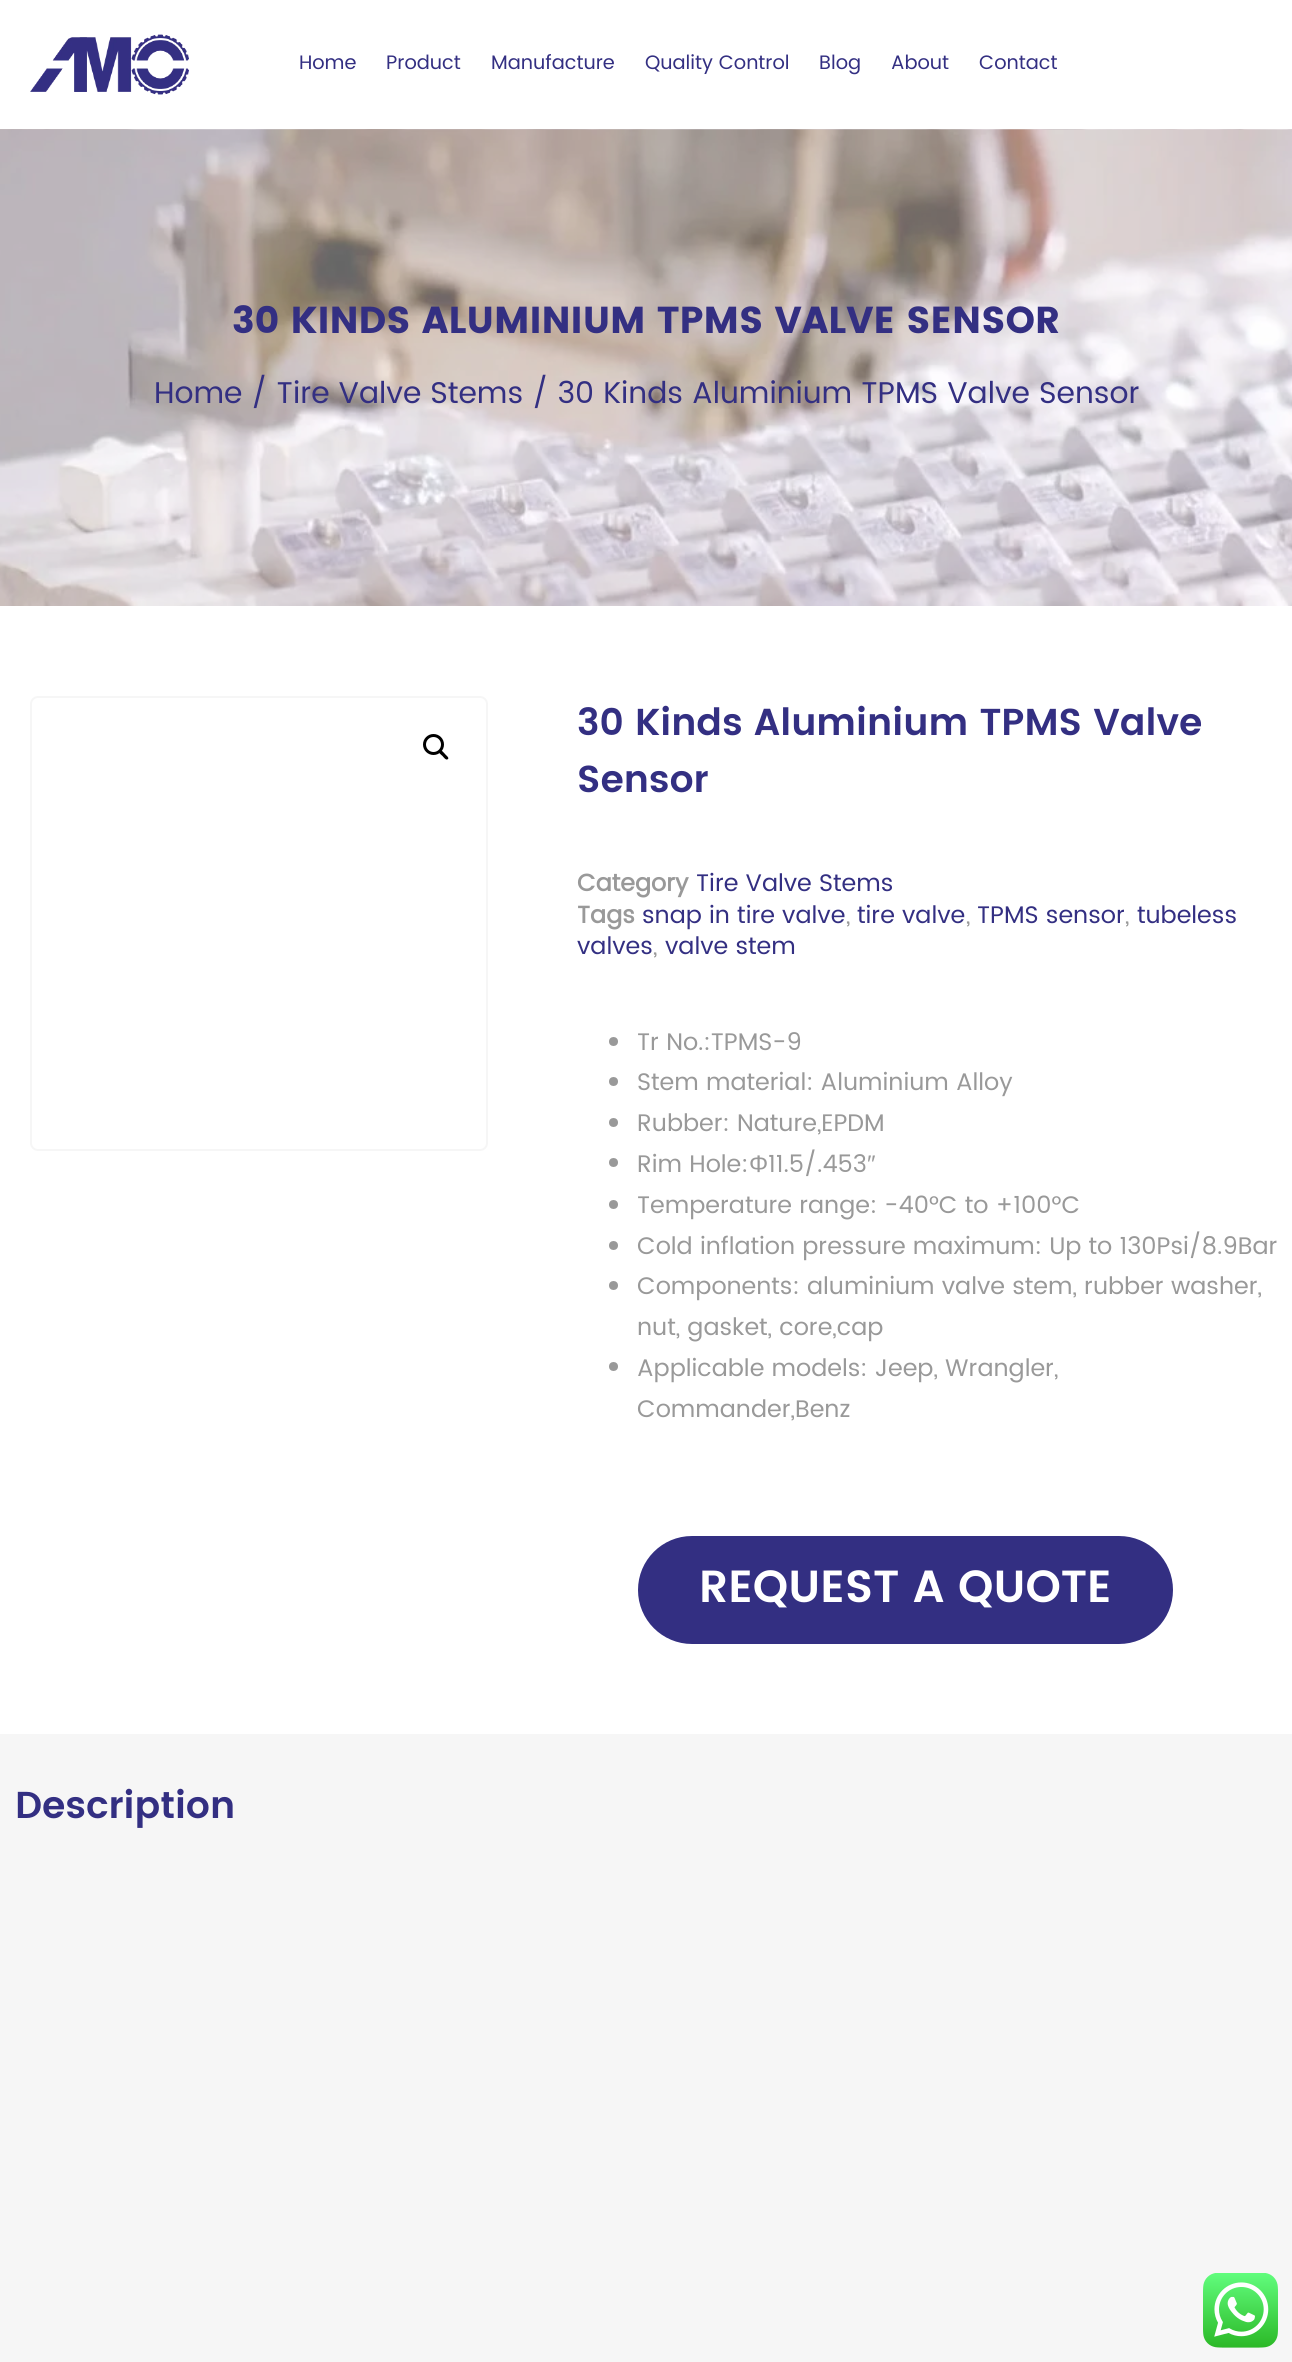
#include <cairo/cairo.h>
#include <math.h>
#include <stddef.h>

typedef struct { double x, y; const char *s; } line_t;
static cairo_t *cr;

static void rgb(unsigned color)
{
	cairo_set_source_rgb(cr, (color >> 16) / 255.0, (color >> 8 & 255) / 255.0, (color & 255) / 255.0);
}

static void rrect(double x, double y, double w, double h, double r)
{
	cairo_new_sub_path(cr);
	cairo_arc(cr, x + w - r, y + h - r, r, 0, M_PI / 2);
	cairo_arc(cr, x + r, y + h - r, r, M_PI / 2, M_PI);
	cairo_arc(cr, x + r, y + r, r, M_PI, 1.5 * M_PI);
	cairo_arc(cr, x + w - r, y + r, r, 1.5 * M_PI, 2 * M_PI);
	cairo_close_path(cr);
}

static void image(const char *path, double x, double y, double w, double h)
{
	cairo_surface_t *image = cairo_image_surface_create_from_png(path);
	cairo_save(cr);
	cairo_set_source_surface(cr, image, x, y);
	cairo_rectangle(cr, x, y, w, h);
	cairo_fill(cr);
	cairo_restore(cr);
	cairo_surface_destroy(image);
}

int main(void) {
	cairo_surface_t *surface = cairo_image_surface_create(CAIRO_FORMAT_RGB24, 1292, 2362);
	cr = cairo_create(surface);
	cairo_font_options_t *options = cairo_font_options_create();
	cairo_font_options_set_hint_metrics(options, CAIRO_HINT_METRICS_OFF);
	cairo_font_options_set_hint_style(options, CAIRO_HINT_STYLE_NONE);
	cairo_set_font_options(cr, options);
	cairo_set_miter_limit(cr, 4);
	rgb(0xffffff);
	cairo_paint(cr);
	image("img/1.png", 30, 34, 159, 61);
	image("img/2.png", 0, 129, 1292, 477);
	rrect(31, 697, 456, 453, 7);
	rgb(0xf6f6f6);
	cairo_stroke(cr);
	cairo_arc(cr, 433.5, 744.5, 9, 0, 2 * M_PI);
	rgb(0x000000);
	cairo_set_line_width(cr, 3);
	cairo_stroke(cr);
	cairo_new_path(cr);
	cairo_move_to(cr, 439.5, 750.5);
	cairo_curve_to(cr, 441, 749, 444, 753, 445, 754);
	cairo_curve_to(cr, 445.5, 755, 449.5, 757.5, 448, 759);
	cairo_curve_to(cr, 446, 761, 443.5, 757, 442.5, 756);
	cairo_curve_to(cr, 441.5, 755, 437.5, 752.5, 439.5, 750.5);
	cairo_close_path(cr);
	cairo_fill(cr);
	rgb(0x999999);
	cairo_arc(cr, 613.5, 1041.5, 4.5, 0, 2 * M_PI);
	cairo_fill(cr);
	cairo_arc(cr, 613.5, 1081.5, 4.5, 0, 2 * M_PI);
	cairo_fill(cr);
	cairo_arc(cr, 613.5, 1122.5, 4.5, 0, 2 * M_PI);
	cairo_fill(cr);
	cairo_arc(cr, 613.5, 1162.5, 4.5, 0, 2 * M_PI);
	cairo_fill(cr);
	cairo_arc(cr, 613.5, 1204.5, 4.5, 0, 2 * M_PI);
	cairo_fill(cr);
	cairo_arc(cr, 613.5, 1245.5, 4.5, 0, 2 * M_PI);
	cairo_fill(cr);
	cairo_arc(cr, 613.5, 1285.5, 4.5, 0, 2 * M_PI);
	cairo_fill(cr);
	cairo_arc(cr, 613.5, 1366.5, 4.5, 0, 2 * M_PI);
	cairo_fill(cr);
	rgb(0x332f82);
	rrect(639, 1537, 533, 106, 53);
	cairo_fill_preserve(cr);
	cairo_set_line_width(cr, 2);
	cairo_stroke(cr);
	rgb(0xf6f6f6);
	cairo_rectangle(cr, 0, 1734, 1292, 628);
	cairo_fill(cr);
	image("img/3.png", 1203, 2273, 75, 75);
	cairo_select_font_face(cr, "Poppins", CAIRO_FONT_SLANT_NORMAL, CAIRO_FONT_WEIGHT_NORMAL);
	cairo_set_font_size(cr, 19.5);
	rgb(0x332f82);
	{
		static const line_t items[] = {
			{299, 69, "Home"},
			{386, 69, "Product"},
			{491, 69, "Manufacture"},
			{645, 69, "Quality Control"},
			{819, 69, "Blog"},
			{891, 69, "About"},
			{979, 69, "Contact"},
		};
		for (size_t i = 0; i < sizeof items / sizeof *items; i++) {
			cairo_move_to(cr, items[i].x, items[i].y);
			cairo_show_text(cr, items[i].s);
		}
	}
	cairo_select_font_face(cr, "Poppins", CAIRO_FONT_SLANT_NORMAL, CAIRO_FONT_WEIGHT_BOLD);
	cairo_set_font_size(cr, 37.5);
	cairo_move_to(cr, 232, 333);
	cairo_show_text(cr, "30 KINDS ALUMINIUM TPMS VALVE SENSOR");
	cairo_select_font_face(cr, "Poppins", CAIRO_FONT_SLANT_NORMAL, CAIRO_FONT_WEIGHT_NORMAL);
	cairo_set_font_size(cr, 30);
	cairo_move_to(cr, 154, 403);
	cairo_show_text(cr, "Home / Tire Valve Stems / 30 Kinds Aluminium TPMS Valve Sensor");
	cairo_select_font_face(cr, "Poppins SemiBold", CAIRO_FONT_SLANT_NORMAL, CAIRO_FONT_WEIGHT_NORMAL);
	cairo_set_font_size(cr, 37.5);
	cairo_move_to(cr, 577, 735);
	cairo_show_text(cr, "30 Kinds Aluminium TPMS Valve");
	cairo_move_to(cr, 577, 792);
	cairo_show_text(cr, "Sensor");
	cairo_select_font_face(cr, "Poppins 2", CAIRO_FONT_SLANT_NORMAL, CAIRO_FONT_WEIGHT_BOLD);
	cairo_set_font_size(cr, 24);
	rgb(0x999999);
	cairo_move_to(cr, 577, 891);
	cairo_show_text(cr, "Category");
	cairo_select_font_face(cr, "Poppins", CAIRO_FONT_SLANT_NORMAL, CAIRO_FONT_WEIGHT_NORMAL);
	rgb(0x332f82);
	cairo_move_to(cr, 696, 891);
	cairo_show_text(cr, "Tire Valve Stems");
	cairo_select_font_face(cr, "Poppins 2", CAIRO_FONT_SLANT_NORMAL, CAIRO_FONT_WEIGHT_BOLD);
	rgb(0x999999);
	cairo_move_to(cr, 577, 923);
	cairo_show_text(cr, "Tags");
	cairo_select_font_face(cr, "Poppins", CAIRO_FONT_SLANT_NORMAL, CAIRO_FONT_WEIGHT_NORMAL);
	rgb(0x332f82);
	cairo_move_to(cr, 642, 923);
	cairo_show_text(cr, "snap in tire valve");
	rgb(0x999999);
	cairo_move_to(cr, 846, 923);
	cairo_show_text(cr, ",");
	rgb(0x332f82);
	cairo_move_to(cr, 857, 923);
	cairo_show_text(cr, "tire valve");
	rgb(0x999999);
	cairo_move_to(cr, 966, 923);
	cairo_show_text(cr, ",");
	rgb(0x332f82);
	cairo_move_to(cr, 977, 923);
	cairo_show_text(cr, "TPMS sensor");
	rgb(0x999999);
	cairo_move_to(cr, 1125, 923);
	cairo_show_text(cr, ",");
	rgb(0x332f82);
	cairo_move_to(cr, 1137, 923);
	cairo_show_text(cr, "tubeless");
	cairo_move_to(cr, 577, 954);
	cairo_show_text(cr, "valves");
	rgb(0x999999);
	cairo_move_to(cr, 653, 954);
	cairo_show_text(cr, ",");
	rgb(0x332f82);
	cairo_move_to(cr, 665, 954);
	cairo_show_text(cr, "valve stem");
	rgb(0x999999);
	{
		static const line_t items[] = {
			{637, 1050, "Tr No.:TPMS-9"},
			{637, 1090, "Stem material: Aluminium Alloy"},
			{637, 1131, "Rubber: Nature,EPDM"},
			{637, 1172, "Rim Hole:"},
		};
		for (size_t i = 0; i < sizeof items / sizeof *items; i++) {
			cairo_move_to(cr, items[i].x, items[i].y);
			cairo_show_text(cr, items[i].s);
		}
	}
	cairo_select_font_face(cr, "Liberation Sans", CAIRO_FONT_SLANT_NORMAL, CAIRO_FONT_WEIGHT_NORMAL);
	cairo_move_to(cr, 749, 1172);
	cairo_show_text(cr, "Φ");
	cairo_select_font_face(cr, "Poppins", CAIRO_FONT_SLANT_NORMAL, CAIRO_FONT_WEIGHT_NORMAL);
	cairo_move_to(cr, 768, 1172);
	cairo_show_text(cr, "11.5/.453");
	cairo_select_font_face(cr, "Liberation Sans", CAIRO_FONT_SLANT_NORMAL, CAIRO_FONT_WEIGHT_NORMAL);
	cairo_move_to(cr, 867, 1172);
	cairo_show_text(cr, "″");
	cairo_select_font_face(cr, "Poppins", CAIRO_FONT_SLANT_NORMAL, CAIRO_FONT_WEIGHT_NORMAL);
	{
		static const line_t items[] = {
			{637, 1213, "Temperature range: -40°C to +100°C"},
			{637, 1254, "Cold inflation pressure maximum: Up to 130Psi/8.9Bar"},
			{637, 1294, "Components: aluminium valve stem, rubber washer,"},
			{637, 1335, "nut, gasket, core,cap"},
			{637, 1376, "Applicable models: Jeep, Wrangler,"},
			{637, 1417, "Commander,Benz"},
		};
		for (size_t i = 0; i < sizeof items / sizeof *items; i++) {
			cairo_move_to(cr, items[i].x, items[i].y);
			cairo_show_text(cr, items[i].s);
		}
	}
	cairo_select_font_face(cr, "Poppins SemiBold", CAIRO_FONT_SLANT_NORMAL, CAIRO_FONT_WEIGHT_NORMAL);
	cairo_set_font_size(cr, 45);
	rgb(0xffffff);
	cairo_move_to(cr, 699, 1602);
	cairo_show_text(cr, "REQUEST A QUOTE");
	cairo_set_font_size(cr, 37.5);
	rgb(0x332f82);
	cairo_move_to(cr, 15, 1818);
	cairo_show_text(cr, "Description");
	cairo_surface_write_to_png(surface, "page.png");
	cairo_font_options_destroy(options);
	cairo_destroy(cr);
	cairo_surface_destroy(surface);
	return 0;
}
